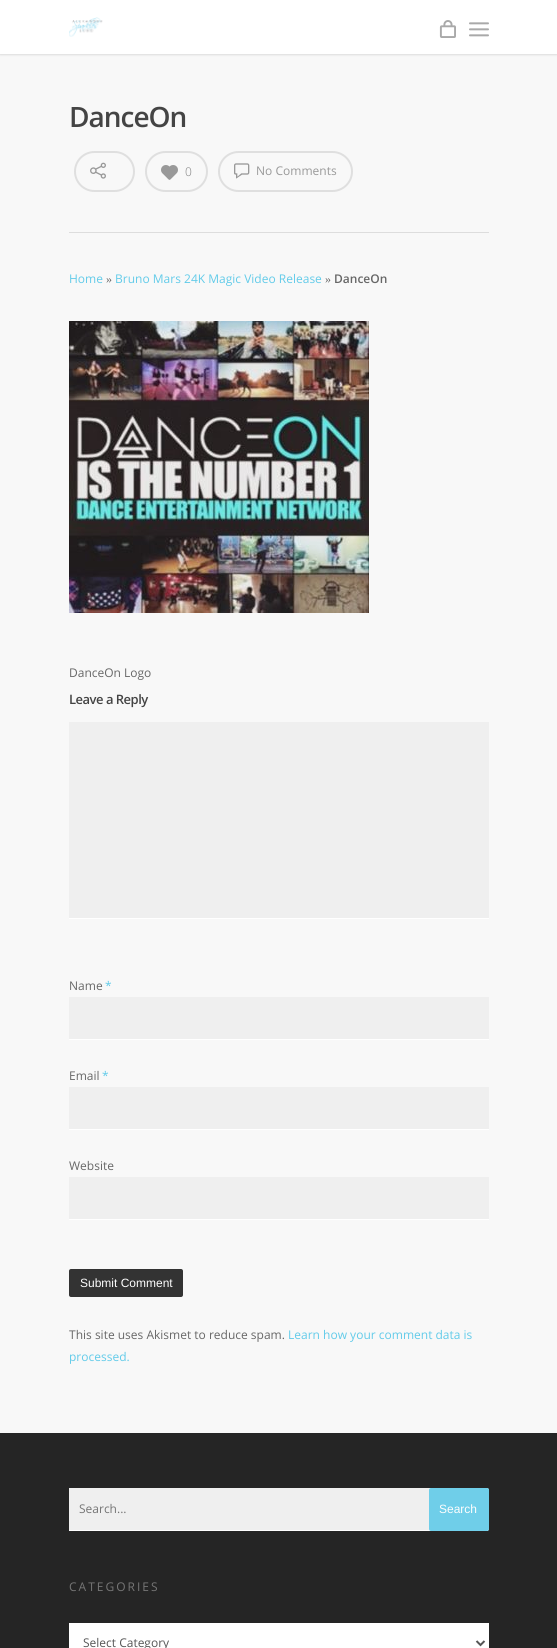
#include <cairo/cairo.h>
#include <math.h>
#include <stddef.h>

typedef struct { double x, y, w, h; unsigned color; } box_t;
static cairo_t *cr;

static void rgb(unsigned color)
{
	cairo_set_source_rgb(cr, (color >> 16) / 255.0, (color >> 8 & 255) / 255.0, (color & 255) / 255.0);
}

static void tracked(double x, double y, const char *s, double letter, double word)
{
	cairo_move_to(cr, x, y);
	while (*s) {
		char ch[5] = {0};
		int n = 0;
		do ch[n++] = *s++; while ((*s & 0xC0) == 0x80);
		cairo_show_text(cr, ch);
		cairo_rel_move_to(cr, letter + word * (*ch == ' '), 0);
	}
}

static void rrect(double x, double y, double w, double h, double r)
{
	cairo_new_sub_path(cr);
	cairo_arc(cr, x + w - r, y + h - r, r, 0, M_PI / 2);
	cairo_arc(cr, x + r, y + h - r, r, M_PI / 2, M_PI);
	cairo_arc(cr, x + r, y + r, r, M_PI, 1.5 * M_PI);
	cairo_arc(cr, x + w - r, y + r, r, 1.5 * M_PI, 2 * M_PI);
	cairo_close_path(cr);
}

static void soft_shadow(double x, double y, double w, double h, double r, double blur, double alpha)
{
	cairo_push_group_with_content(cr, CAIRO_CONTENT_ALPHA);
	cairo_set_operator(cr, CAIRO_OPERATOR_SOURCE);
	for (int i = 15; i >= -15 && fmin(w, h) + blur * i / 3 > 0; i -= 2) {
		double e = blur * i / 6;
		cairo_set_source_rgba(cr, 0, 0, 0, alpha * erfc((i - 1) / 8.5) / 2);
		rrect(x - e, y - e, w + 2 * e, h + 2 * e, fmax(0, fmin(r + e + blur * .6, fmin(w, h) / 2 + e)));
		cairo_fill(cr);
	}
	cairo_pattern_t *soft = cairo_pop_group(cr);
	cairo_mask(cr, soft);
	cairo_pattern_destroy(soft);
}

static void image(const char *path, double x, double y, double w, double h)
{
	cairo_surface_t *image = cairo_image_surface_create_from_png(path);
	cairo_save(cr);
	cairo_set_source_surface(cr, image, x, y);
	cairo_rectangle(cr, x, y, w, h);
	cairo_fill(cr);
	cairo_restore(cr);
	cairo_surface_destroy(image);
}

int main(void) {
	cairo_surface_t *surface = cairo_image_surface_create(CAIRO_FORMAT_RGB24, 557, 1648);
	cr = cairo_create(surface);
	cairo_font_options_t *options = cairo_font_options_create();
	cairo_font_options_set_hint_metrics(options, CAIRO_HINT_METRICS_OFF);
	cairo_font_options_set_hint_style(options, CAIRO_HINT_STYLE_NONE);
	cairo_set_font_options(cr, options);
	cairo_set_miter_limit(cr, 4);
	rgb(0x252525);
	cairo_paint(cr);
	rgb(0xf8f8f8);
	cairo_rectangle(cr, 0, 54, 557, 1379);
	cairo_fill(cr);
	rgb(0x000000);
	soft_shadow(0, 0, 557, 54, 0, 1.5, 0.22);
	rgb(0xffffff);
	cairo_rectangle(cr, 0, 0, 557, 54);
	cairo_fill(cr);
	image("img/1.png", 69, 17, 34, 20);
	image("img/2.png", 439, 20, 17, 18);
	image("img/3.png", 469, 22, 20, 15);
	rgb(0xdddddd);
	cairo_rectangle(cr, 69, 232, 420, 1);
	cairo_fill(cr);
	rrect(75, 152, 59, 39, 19.5);
	rgb(0xdfdfdf);
	cairo_stroke(cr);
	image("img/4.png", 90, 162, 16, 17);
	rrect(146, 152, 61, 39, 19.5);
	cairo_stroke(cr);
	image("img/5.png", 161, 165, 17, 15);
	rrect(219, 152, 133, 39, 19.5);
	cairo_stroke(cr);
	image("img/6.png", 234, 163, 16, 16);
	image("img/7.png", 69, 321, 300, 292);
	{
		static const box_t items[] = {
			{69, 722, 420, 196, 0xefefef},
			{69, 918, 420, 1, 0xffffff},
			{69, 997, 420, 42, 0xefefef},
			{69, 1039, 420, 1, 0xffffff},
			{69, 1087, 420, 42, 0xefefef},
			{69, 1129, 420, 1, 0xffffff},
			{69, 1177, 420, 42, 0xefefef},
			{69, 1219, 420, 1, 0xffffff},
		};
		for (size_t i = 0; i < sizeof items / sizeof *items; i++) {
			rgb(items[i].color);
			cairo_rectangle(cr, items[i].x, items[i].y, items[i].w, items[i].h);
			cairo_fill(cr);
		}
	}
	rgb(0x333333);
	rrect(69, 1269, 114, 28, 2);
	cairo_fill(cr);
	rgb(0xefefef);
	cairo_new_path(cr);
	cairo_move_to(cr, 69, 1488);
	cairo_line_to(cr, 487, 1488);
	cairo_curve_to(cr, 488, 1488, 489, 1489, 489, 1490);
	cairo_line_to(cr, 489, 1529);
	cairo_curve_to(cr, 489, 1530, 488, 1531, 487, 1531);
	cairo_line_to(cr, 69, 1531);
	cairo_close_path(cr);
	cairo_fill(cr);
	rgb(0xffffff);
	cairo_rectangle(cr, 69, 1530, 419, 1);
	cairo_fill(cr);
	cairo_set_source_rgba(cr, 0.384, 0.796, 0.914, 0.9);
	rrect(429, 1488, 60, 43, 2);
	cairo_fill(cr);
	rgb(0xffffff);
	cairo_rectangle(cr, 69, 1623, 420, 25);
	cairo_fill(cr);
	cairo_new_path(cr);
	cairo_move_to(cr, 476.5, 1641);
	cairo_line_to(cr, 480.5, 1645);
	cairo_line_to(cr, 484.5, 1641);
	rgb(0x555555);
	cairo_stroke(cr);
	cairo_select_font_face(cr, "Open Sans SemiBold", CAIRO_FONT_SLANT_NORMAL, CAIRO_FONT_WEIGHT_NORMAL);
	cairo_set_font_size(cr, 28);
	rgb(0x444444);
	tracked(69, 127, "DanceOn", -1, 0);
	cairo_select_font_face(cr, "Open Sans Light", CAIRO_FONT_SLANT_NORMAL, CAIRO_FONT_WEIGHT_NORMAL);
	cairo_set_font_size(cr, 12);
	rgb(0x888888);
	cairo_move_to(cr, 185, 176);
	cairo_show_text(cr, "0");
	cairo_select_font_face(cr, "Open Sans", CAIRO_FONT_SLANT_NORMAL, CAIRO_FONT_WEIGHT_NORMAL);
	rgb(0x999999);
	cairo_move_to(cr, 256, 175);
	cairo_show_text(cr, "No Comments");
	rgb(0x62cbe9);
	cairo_move_to(cr, 69, 283);
	cairo_show_text(cr, "Home");
	cairo_select_font_face(cr, "Liberation Serif", CAIRO_FONT_SLANT_NORMAL, CAIRO_FONT_WEIGHT_NORMAL);
	rgb(0x676767);
	cairo_move_to(cr, 106, 283);
	cairo_show_text(cr, "»");
	cairo_select_font_face(cr, "Open Sans", CAIRO_FONT_SLANT_NORMAL, CAIRO_FONT_WEIGHT_NORMAL);
	rgb(0x62cbe9);
	cairo_move_to(cr, 115, 283);
	cairo_show_text(cr, "Bruno Mars 24K Magic Video Release");
	cairo_select_font_face(cr, "Liberation Serif", CAIRO_FONT_SLANT_NORMAL, CAIRO_FONT_WEIGHT_NORMAL);
	rgb(0x676767);
	cairo_move_to(cr, 325, 283);
	cairo_show_text(cr, "»");
	cairo_select_font_face(cr, "Open Sans SemiBold", CAIRO_FONT_SLANT_NORMAL, CAIRO_FONT_WEIGHT_NORMAL);
	cairo_move_to(cr, 334, 283);
	cairo_show_text(cr, "DanceOn");
	cairo_select_font_face(cr, "Open Sans", CAIRO_FONT_SLANT_NORMAL, CAIRO_FONT_WEIGHT_NORMAL);
	cairo_move_to(cr, 69, 677);
	cairo_show_text(cr, "DanceOn Logo");
	cairo_select_font_face(cr, "Open Sans SemiBold", CAIRO_FONT_SLANT_NORMAL, CAIRO_FONT_WEIGHT_NORMAL);
	cairo_set_font_size(cr, 13);
	rgb(0x444444);
	tracked(69, 704, "Leave a Reply", -0.5, 0);
	cairo_select_font_face(cr, "Open Sans", CAIRO_FONT_SLANT_NORMAL, CAIRO_FONT_WEIGHT_NORMAL);
	cairo_set_font_size(cr, 12);
	rgb(0x676767);
	cairo_move_to(cr, 69, 990);
	cairo_show_text(cr, "Name");
	rgb(0x62cbe9);
	cairo_move_to(cr, 105, 990);
	cairo_show_text(cr, "*");
	rgb(0x676767);
	cairo_move_to(cr, 69, 1080);
	cairo_show_text(cr, "Email");
	rgb(0x62cbe9);
	cairo_move_to(cr, 102, 1080);
	cairo_show_text(cr, "*");
	rgb(0x676767);
	cairo_move_to(cr, 69, 1170);
	cairo_show_text(cr, "Website");
	cairo_select_font_face(cr, "Liberation Sans", CAIRO_FONT_SLANT_NORMAL, CAIRO_FONT_WEIGHT_NORMAL);
	rgb(0xfdfdfd);
	cairo_move_to(cr, 80, 1287);
	cairo_show_text(cr, "Submit Comment");
	cairo_select_font_face(cr, "Open Sans", CAIRO_FONT_SLANT_NORMAL, CAIRO_FONT_WEIGHT_NORMAL);
	rgb(0x676767);
	cairo_move_to(cr, 69, 1339);
	cairo_show_text(cr, "This site uses Akismet to reduce spam.");
	rgb(0x62cbe9);
	cairo_move_to(cr, 288, 1339);
	cairo_show_text(cr, "Learn how your comment data is");
	cairo_move_to(cr, 69, 1361);
	cairo_show_text(cr, "processed.");
	rgb(0x757575);
	cairo_move_to(cr, 79, 1513);
	cairo_show_text(cr, "Search...");
	cairo_select_font_face(cr, "Liberation Sans", CAIRO_FONT_SLANT_NORMAL, CAIRO_FONT_WEIGHT_NORMAL);
	rgb(0xfdfdfd);
	cairo_move_to(cr, 439, 1513);
	cairo_show_text(cr, "Search");
	cairo_select_font_face(cr, "Open Sans", CAIRO_FONT_SLANT_NORMAL, CAIRO_FONT_WEIGHT_NORMAL);
	rgb(0x757575);
	tracked(69, 1591, "CATEGORIES", 2, 0);
	rgb(0x555555);
	cairo_move_to(cr, 83, 1647);
	cairo_show_text(cr, "Select Category");
	cairo_surface_write_to_png(surface, "page.png");
	cairo_font_options_destroy(options);
	cairo_destroy(cr);
	cairo_surface_destroy(surface);
	return 0;
}
